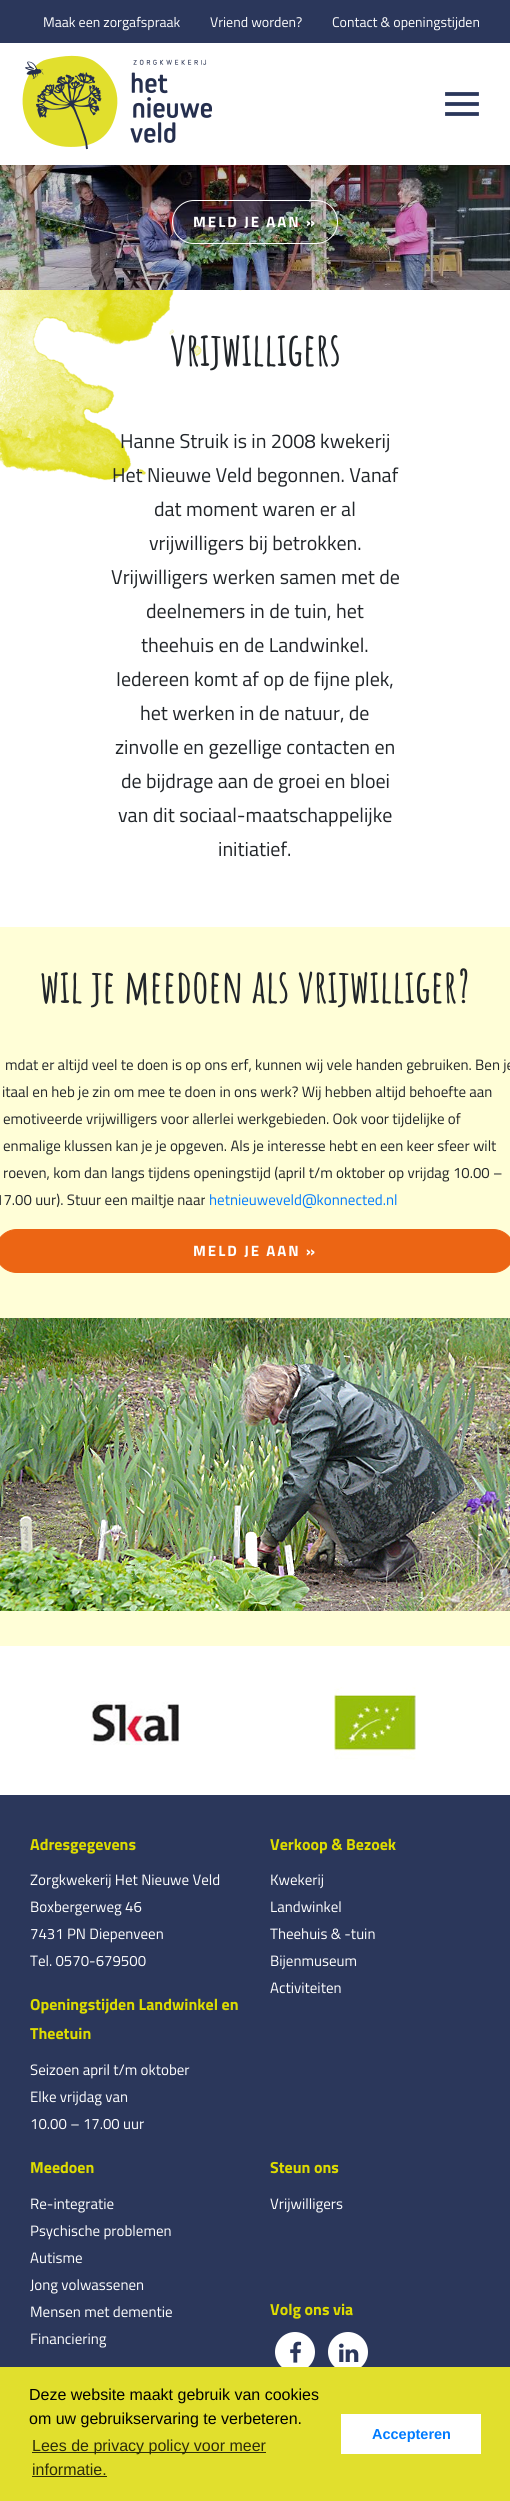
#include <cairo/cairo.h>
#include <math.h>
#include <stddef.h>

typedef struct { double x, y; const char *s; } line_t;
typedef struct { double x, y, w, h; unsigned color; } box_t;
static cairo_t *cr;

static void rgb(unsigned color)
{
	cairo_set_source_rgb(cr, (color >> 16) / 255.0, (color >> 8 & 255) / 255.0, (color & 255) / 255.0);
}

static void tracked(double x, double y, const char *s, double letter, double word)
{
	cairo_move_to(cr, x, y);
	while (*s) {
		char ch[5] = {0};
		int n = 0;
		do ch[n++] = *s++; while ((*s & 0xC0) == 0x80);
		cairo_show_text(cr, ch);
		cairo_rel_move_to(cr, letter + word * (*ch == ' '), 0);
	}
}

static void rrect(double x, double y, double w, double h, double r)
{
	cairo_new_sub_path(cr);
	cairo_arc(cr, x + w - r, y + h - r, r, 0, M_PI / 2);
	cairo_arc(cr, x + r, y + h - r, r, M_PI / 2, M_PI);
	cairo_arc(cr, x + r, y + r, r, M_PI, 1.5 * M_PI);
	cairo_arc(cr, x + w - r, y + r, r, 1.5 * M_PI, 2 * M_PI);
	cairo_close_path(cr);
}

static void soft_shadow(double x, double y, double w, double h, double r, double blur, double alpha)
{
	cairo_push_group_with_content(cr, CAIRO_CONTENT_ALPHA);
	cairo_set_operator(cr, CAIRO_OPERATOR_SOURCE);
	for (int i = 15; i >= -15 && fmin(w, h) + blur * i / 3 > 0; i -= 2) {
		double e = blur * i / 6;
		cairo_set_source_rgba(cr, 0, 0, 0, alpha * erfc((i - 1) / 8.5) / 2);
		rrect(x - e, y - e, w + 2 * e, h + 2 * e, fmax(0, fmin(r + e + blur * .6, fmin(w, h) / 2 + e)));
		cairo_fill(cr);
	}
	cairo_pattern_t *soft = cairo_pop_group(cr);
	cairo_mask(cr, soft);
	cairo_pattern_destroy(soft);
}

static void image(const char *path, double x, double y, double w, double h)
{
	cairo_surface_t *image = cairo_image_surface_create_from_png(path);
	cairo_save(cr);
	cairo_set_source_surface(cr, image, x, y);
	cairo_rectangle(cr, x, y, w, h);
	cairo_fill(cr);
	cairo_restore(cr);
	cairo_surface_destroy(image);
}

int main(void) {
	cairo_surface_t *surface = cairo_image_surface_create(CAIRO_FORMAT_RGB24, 510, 2501);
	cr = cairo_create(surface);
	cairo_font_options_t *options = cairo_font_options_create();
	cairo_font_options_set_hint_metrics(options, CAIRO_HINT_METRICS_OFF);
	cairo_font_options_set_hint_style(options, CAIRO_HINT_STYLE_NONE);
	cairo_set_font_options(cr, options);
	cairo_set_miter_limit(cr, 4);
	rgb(0xffffff);
	cairo_paint(cr);
	image("img/2.png", 0, 165, 510, 125);
	cairo_save(cr);
	cairo_rectangle(cr, 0, 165, 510, 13);
	cairo_clip(cr);
	rgb(0x000000);
	soft_shadow(0, 43, 510, 122, 0, 10, 0.2);
	cairo_restore(cr);
	image("img/1.png", 22, 55, 190, 95);
	cairo_new_path(cr);
	cairo_move_to(cr, 447, 94);
	cairo_line_to(cr, 477, 94);
	cairo_move_to(cr, 447, 104);
	cairo_line_to(cr, 477, 104);
	cairo_move_to(cr, 447, 114);
	cairo_line_to(cr, 477, 114);
	rgb(0x2b375b);
	cairo_set_line_width(cr, 3.8);
	cairo_set_line_cap(cr, CAIRO_LINE_CAP_SQUARE);
	cairo_stroke(cr);
	cairo_rectangle(cr, 0, 0, 510, 43);
	cairo_fill(cr);
	rrect(172.5, 200.5, 165, 43, 21.5);
	rgb(0xffffff);
	cairo_set_line_width(cr, 1);
	cairo_set_line_cap(cr, CAIRO_LINE_CAP_BUTT);
	cairo_stroke(cr);
	image("img/3.png", 0, 290, 242, 191);
	rgb(0xfffed7);
	cairo_rectangle(cr, 0, 927, 510, 719);
	cairo_fill(cr);
	rgb(0xec6514);
	rrect(-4.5, 1229.5, 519, 43, 21.5);
	cairo_fill_preserve(cr);
	cairo_stroke(cr);
	image("img/4.png", 0, 1318, 510, 293);
	image("img/5.png", 91, 1701, 88, 44);
	image("img/6.png", 334, 1687, 82, 73);
	rgb(0x2b375b);
	cairo_rectangle(cr, 0, 1795, 510, 572);
	cairo_fill(cr);
	rgb(0xffffff);
	cairo_arc(cr, 295, 2352, 20, 0, 2 * M_PI);
	cairo_fill(cr);
	image("img/7.png", 290, 2341, 12, 22);
	cairo_arc(cr, 348, 2352, 20, 0, 2 * M_PI);
	cairo_fill(cr);
	image("img/8.png", 339, 2343, 20, 19);
	{
		static const box_t items[] = {
			{0, 2367, 510, 134, 0xe1df2d},
			{32, 2452, 234, 1, 0x2d2d09},
			{32, 2476, 75, 1, 0x2d2d09},
			{341, 2414, 140, 40, 0xffffff},
		};
		for (size_t i = 0; i < sizeof items / sizeof *items; i++) {
			rgb(items[i].color);
			cairo_rectangle(cr, items[i].x, items[i].y, items[i].w, items[i].h);
			cairo_fill(cr);
		}
	}
	cairo_select_font_face(cr, "Titillium Web", CAIRO_FONT_SLANT_NORMAL, CAIRO_FONT_WEIGHT_NORMAL);
	cairo_set_font_size(cr, 14);
	{
		static const line_t items[] = {
			{43, 27, "Maak een zorgafspraak"},
			{210, 27, "Vriend worden?"},
			{332, 27, "Contact & openingstijden"},
		};
		for (size_t i = 0; i < sizeof items / sizeof *items; i++) {
			cairo_move_to(cr, items[i].x, items[i].y);
			cairo_show_text(cr, items[i].s);
		}
	}
	cairo_select_font_face(cr, "Titillium Web", CAIRO_FONT_SLANT_NORMAL, CAIRO_FONT_WEIGHT_BOLD);
	cairo_set_font_size(cr, 15);
	tracked(193, 227, "MELD JE AAN »", 2, 0);
	cairo_select_font_face(cr, "Amatic SC", CAIRO_FONT_SLANT_NORMAL, CAIRO_FONT_WEIGHT_BOLD);
	cairo_set_font_size(cr, 46);
	rgb(0x212529);
	cairo_move_to(cr, 170, 366);
	cairo_show_text(cr, "vrijwilligers");
	cairo_select_font_face(cr, "Titillium Web", CAIRO_FONT_SLANT_NORMAL, CAIRO_FONT_WEIGHT_NORMAL);
	cairo_set_font_size(cr, 20);
	{
		static const line_t items[] = {
			{120, 448, "Hanne Struik is in 2008 kwekerij"},
			{112, 482, "Het Nieuwe Veld begonnen. Vanaf"},
			{154, 516, "dat moment waren er al"},
			{149, 550, "vrijwilligers bij betrokken."},
			{111, 584, "Vrijwilligers werken samen met de"},
			{146, 618, "deelnemers in de tuin, het"},
			{141, 652, "theehuis en de Landwinkel."},
			{116, 686, "Iedereen komt af op de fijne plek,"},
			{140, 720, "het werken in de natuur, de"},
			{115, 754, "zinvolle en gezellige contacten en"},
			{121, 788, "de bijdrage aan de groei en bloei"},
			{118, 822, "van dit sociaal-maatschappelijke"},
			{218, 856, "initiatief."},
		};
		for (size_t i = 0; i < sizeof items / sizeof *items; i++) {
			cairo_move_to(cr, items[i].x, items[i].y);
			cairo_show_text(cr, items[i].s);
		}
	}
	cairo_select_font_face(cr, "Amatic SC", CAIRO_FONT_SLANT_NORMAL, CAIRO_FONT_WEIGHT_BOLD);
	cairo_set_font_size(cr, 46);
	cairo_move_to(cr, 40, 1003);
	cairo_show_text(cr, "wil je meedoen als vrijwilliger?");
	cairo_select_font_face(cr, "Titillium Web", CAIRO_FONT_SLANT_NORMAL, CAIRO_FONT_WEIGHT_NORMAL);
	cairo_set_font_size(cr, 15);
	{
		static const line_t items[] = {
			{5, 1070, "mdat er altijd veel te doen is op ons erf, kunnen wij vele handen gebruiken. Ben je"},
			{2, 1097, "itaal en heb je zin om mee te doen in ons werk? Wij hebben altijd behoefte aan"},
			{3, 1124, "emotiveerde vrijwilligers voor allerlei werkgebieden. Ook voor tijdelijke of"},
			{3, 1151, "enmalige klussen kan je je opgeven. Als je interesse hebt en een keer sfeer wilt"},
			{3, 1178, "roeven, kom dan langs tijdens openingstijd (april t/m oktober op vrijdag 10.00 –"},
			{-5, 1205, "17.00 uur). Stuur een mailtje naar"},
		};
		for (size_t i = 0; i < sizeof items / sizeof *items; i++) {
			cairo_move_to(cr, items[i].x, items[i].y);
			cairo_show_text(cr, items[i].s);
		}
	}
	rgb(0x007bff);
	cairo_move_to(cr, 209, 1205);
	cairo_show_text(cr, "hetnieuweveld@konnected.nl");
	cairo_select_font_face(cr, "Titillium Web", CAIRO_FONT_SLANT_NORMAL, CAIRO_FONT_WEIGHT_BOLD);
	rgb(0xffffff);
	tracked(193, 1256, "MELD JE AAN »", 2, 0);
	cairo_set_font_size(cr, 16);
	rgb(0xdedc00);
	cairo_move_to(cr, 30, 1850);
	cairo_show_text(cr, "Adresgegevens");
	cairo_select_font_face(cr, "Titillium Web", CAIRO_FONT_SLANT_NORMAL, CAIRO_FONT_WEIGHT_NORMAL);
	cairo_set_font_size(cr, 15);
	rgb(0xffffff);
	{
		static const line_t items[] = {
			{30, 1885, "Zorgkwekerij Het Nieuwe Veld"},
			{30, 1912, "Boxbergerweg 46"},
			{30, 1939, "7431 PN Diepenveen"},
			{30, 1966, "Tel. 0570-679500"},
		};
		for (size_t i = 0; i < sizeof items / sizeof *items; i++) {
			cairo_move_to(cr, items[i].x, items[i].y);
			cairo_show_text(cr, items[i].s);
		}
	}
	cairo_select_font_face(cr, "Titillium Web", CAIRO_FONT_SLANT_NORMAL, CAIRO_FONT_WEIGHT_BOLD);
	cairo_set_font_size(cr, 16);
	rgb(0xdedc00);
	cairo_move_to(cr, 30, 2010);
	cairo_show_text(cr, "Openingstijden Landwinkel en");
	cairo_move_to(cr, 30, 2039);
	cairo_show_text(cr, "Theetuin");
	cairo_select_font_face(cr, "Titillium Web", CAIRO_FONT_SLANT_NORMAL, CAIRO_FONT_WEIGHT_NORMAL);
	cairo_set_font_size(cr, 15);
	rgb(0xffffff);
	{
		static const line_t items[] = {
			{30, 2075, "Seizoen april t/m oktober"},
			{30, 2102, "Elke vrijdag van"},
			{30, 2129, "10.00 – 17.00 uur"},
		};
		for (size_t i = 0; i < sizeof items / sizeof *items; i++) {
			cairo_move_to(cr, items[i].x, items[i].y);
			cairo_show_text(cr, items[i].s);
		}
	}
	cairo_select_font_face(cr, "Titillium Web", CAIRO_FONT_SLANT_NORMAL, CAIRO_FONT_WEIGHT_BOLD);
	cairo_set_font_size(cr, 16);
	rgb(0xdedc00);
	cairo_move_to(cr, 270, 1850);
	cairo_show_text(cr, "Verkoop & Bezoek");
	cairo_select_font_face(cr, "Titillium Web", CAIRO_FONT_SLANT_NORMAL, CAIRO_FONT_WEIGHT_NORMAL);
	cairo_set_font_size(cr, 15);
	rgb(0xffffff);
	{
		static const line_t items[] = {
			{270, 1885, "Kwekerij"},
			{270, 1912, "Landwinkel"},
			{270, 1939, "Theehuis & -tuin"},
			{270, 1966, "Bijenmuseum"},
			{270, 1993, "Activiteiten"},
		};
		for (size_t i = 0; i < sizeof items / sizeof *items; i++) {
			cairo_move_to(cr, items[i].x, items[i].y);
			cairo_show_text(cr, items[i].s);
		}
	}
	cairo_select_font_face(cr, "Titillium Web", CAIRO_FONT_SLANT_NORMAL, CAIRO_FONT_WEIGHT_BOLD);
	cairo_set_font_size(cr, 16);
	rgb(0xdedc00);
	cairo_move_to(cr, 30, 2173);
	cairo_show_text(cr, "Meedoen");
	cairo_select_font_face(cr, "Titillium Web", CAIRO_FONT_SLANT_NORMAL, CAIRO_FONT_WEIGHT_NORMAL);
	cairo_set_font_size(cr, 15);
	rgb(0xffffff);
	{
		static const line_t items[] = {
			{30, 2209, "Re-integratie"},
			{30, 2236, "Psychische problemen"},
			{30, 2263, "Autisme"},
			{30, 2290, "Jong volwassenen"},
			{30, 2317, "Mensen met dementie"},
			{30, 2344, "Financiering"},
		};
		for (size_t i = 0; i < sizeof items / sizeof *items; i++) {
			cairo_move_to(cr, items[i].x, items[i].y);
			cairo_show_text(cr, items[i].s);
		}
	}
	cairo_select_font_face(cr, "Titillium Web", CAIRO_FONT_SLANT_NORMAL, CAIRO_FONT_WEIGHT_BOLD);
	cairo_set_font_size(cr, 16);
	rgb(0xdedc00);
	cairo_move_to(cr, 270, 2173);
	cairo_show_text(cr, "Steun ons");
	cairo_select_font_face(cr, "Titillium Web", CAIRO_FONT_SLANT_NORMAL, CAIRO_FONT_WEIGHT_NORMAL);
	cairo_set_font_size(cr, 15);
	rgb(0xffffff);
	cairo_move_to(cr, 270, 2209);
	cairo_show_text(cr, "Vrijwilligers");
	cairo_select_font_face(cr, "Titillium Web", CAIRO_FONT_SLANT_NORMAL, CAIRO_FONT_WEIGHT_BOLD);
	cairo_set_font_size(cr, 16);
	rgb(0xdedc00);
	cairo_move_to(cr, 270, 2315);
	cairo_show_text(cr, "Volg ons via");
	cairo_select_font_face(cr, "Liberation Sans", CAIRO_FONT_SLANT_NORMAL, CAIRO_FONT_WEIGHT_NORMAL);
	rgb(0x000000);
	cairo_move_to(cr, 29, 2400);
	cairo_show_text(cr, "Deze website maakt gebruik van cookies");
	cairo_move_to(cr, 29, 2424);
	cairo_show_text(cr, "om uw gebruikservaring te verbeteren.");
	rgb(0x2d2d09);
	cairo_move_to(cr, 32, 2451);
	cairo_show_text(cr, "Lees de privacy policy voor meer");
	cairo_move_to(cr, 32, 2475);
	cairo_show_text(cr, "informatie.");
	cairo_select_font_face(cr, "Liberation Sans", CAIRO_FONT_SLANT_NORMAL, CAIRO_FONT_WEIGHT_BOLD);
	cairo_set_font_size(cr, 14.5);
	rgb(0x007bff);
	cairo_move_to(cr, 372, 2439);
	cairo_show_text(cr, "Accepteren");
	cairo_surface_write_to_png(surface, "page.png");
	cairo_font_options_destroy(options);
	cairo_destroy(cr);
	cairo_surface_destroy(surface);
	return 0;
}
